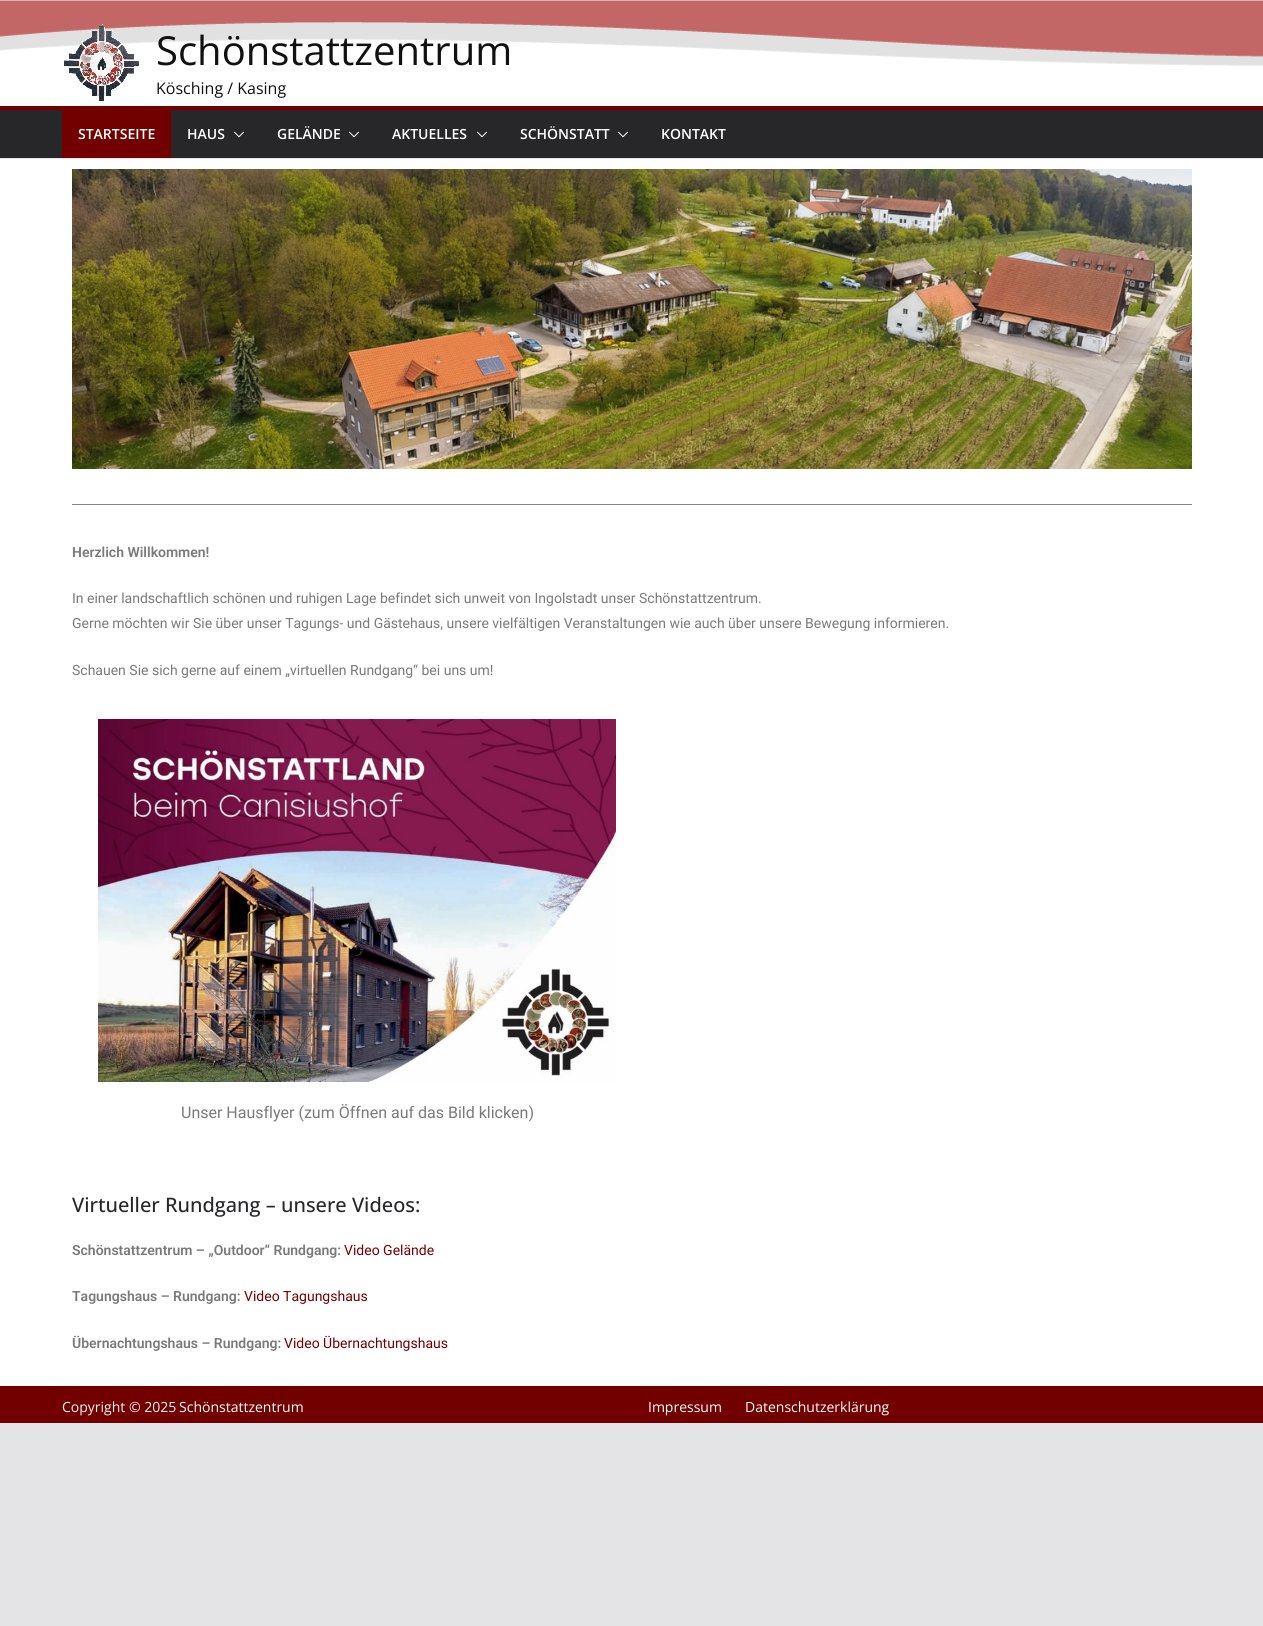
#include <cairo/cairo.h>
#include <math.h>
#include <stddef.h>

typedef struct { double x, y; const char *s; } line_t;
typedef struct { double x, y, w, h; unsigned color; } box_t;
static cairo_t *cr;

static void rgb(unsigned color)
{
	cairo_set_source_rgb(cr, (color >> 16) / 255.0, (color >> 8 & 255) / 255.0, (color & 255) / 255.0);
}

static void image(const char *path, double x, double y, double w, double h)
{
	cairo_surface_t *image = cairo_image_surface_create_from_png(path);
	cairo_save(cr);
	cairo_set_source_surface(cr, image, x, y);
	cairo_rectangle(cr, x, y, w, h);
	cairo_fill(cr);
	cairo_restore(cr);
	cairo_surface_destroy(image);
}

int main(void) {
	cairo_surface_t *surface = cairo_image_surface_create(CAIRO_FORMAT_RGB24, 1263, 1626);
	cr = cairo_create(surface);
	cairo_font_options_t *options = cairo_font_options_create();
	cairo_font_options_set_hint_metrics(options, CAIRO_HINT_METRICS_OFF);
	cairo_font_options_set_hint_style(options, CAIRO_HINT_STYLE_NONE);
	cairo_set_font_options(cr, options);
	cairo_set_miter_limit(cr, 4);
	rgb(0xe4e4e7);
	cairo_paint(cr);
	image("img/1.png", 0, 0, 1263, 106);
	image("img/2.png", 63, 24, 77, 78);
	{
		static const box_t items[] = {
			{0, 110, 1263, 48, 0x27272a},
			{0, 106, 1263, 4, 0x730000},
			{62, 110, 109, 48, 0x730000},
		};
		for (size_t i = 0; i < sizeof items / sizeof *items; i++) {
			rgb(items[i].color);
			cairo_rectangle(cr, items[i].x, items[i].y, items[i].w, items[i].h);
			cairo_fill(cr);
		}
	}
	image("img/3.png", 234, 131, 10, 7);
	image("img/3.png", 349, 131, 10, 7);
	image("img/3.png", 477, 131, 10, 7);
	image("img/3.png", 618, 131, 10, 7);
	rgb(0xffffff);
	cairo_rectangle(cr, 0, 159, 1263, 1227);
	cairo_fill(cr);
	image("img/4.png", 72, 169, 1120, 300);
	rgb(0x858585);
	cairo_rectangle(cr, 72, 504, 1120, 1);
	cairo_fill(cr);
	image("img/5.png", 98, 719, 518, 363);
	rgb(0x730000);
	cairo_rectangle(cr, 0, 1386, 1263, 37);
	cairo_fill(cr);
	cairo_select_font_face(cr, "Open Sans", CAIRO_FONT_SLANT_NORMAL, CAIRO_FONT_WEIGHT_NORMAL);
	cairo_set_font_size(cr, 40);
	rgb(0x111111);
	cairo_move_to(cr, 156, 65);
	cairo_show_text(cr, "Schönstattzentrum");
	cairo_set_font_size(cr, 16);
	cairo_move_to(cr, 156, 94);
	cairo_show_text(cr, "Kösching / Kasing");
	cairo_select_font_face(cr, "Open Sans SemiBold", CAIRO_FONT_SLANT_NORMAL, CAIRO_FONT_WEIGHT_NORMAL);
	cairo_set_font_size(cr, 14);
	rgb(0xffffff);
	{
		static const line_t items[] = {
			{78, 139, "STARTSEITE"},
			{187, 139, "HAUS"},
			{277, 139, "GELÄNDE"},
			{392, 139, "AKTUELLES"},
			{520, 139, "SCHÖNSTATT"},
			{661, 139, "KONTAKT"},
		};
		for (size_t i = 0; i < sizeof items / sizeof *items; i++) {
			cairo_move_to(cr, items[i].x, items[i].y);
			cairo_show_text(cr, items[i].s);
		}
	}
	cairo_select_font_face(cr, "Roboto SemiBold", CAIRO_FONT_SLANT_NORMAL, CAIRO_FONT_WEIGHT_NORMAL);
	rgb(0x7a7a7a);
	cairo_move_to(cr, 72, 557);
	cairo_show_text(cr, "Herzlich Willkommen!");
	cairo_select_font_face(cr, "Roboto", CAIRO_FONT_SLANT_NORMAL, CAIRO_FONT_WEIGHT_NORMAL);
	{
		static const line_t items[] = {
			{72, 603, "In einer landschaftlich schönen und ruhigen Lage befindet sich unweit von Ingolstadt unser Schönstattzentrum."},
			{72, 628, "Gerne möchten wir Sie über unser Tagungs- und Gästehaus, unsere vielfältigen Veranstaltungen wie auch über unsere Bewegung informieren."},
			{72, 675, "Schauen Sie sich gerne auf einem „virtuellen Rundgang“ bei uns um!"},
		};
		for (size_t i = 0; i < sizeof items / sizeof *items; i++) {
			cairo_move_to(cr, items[i].x, items[i].y);
			cairo_show_text(cr, items[i].s);
		}
	}
	cairo_set_font_size(cr, 16);
	cairo_move_to(cr, 181, 1118);
	cairo_show_text(cr, "Unser Hausflyer (zum Öffnen auf das Bild klicken)");
	cairo_select_font_face(cr, "Open Sans Medium", CAIRO_FONT_SLANT_NORMAL, CAIRO_FONT_WEIGHT_NORMAL);
	cairo_set_font_size(cr, 20);
	rgb(0x27272a);
	cairo_move_to(cr, 72, 1212);
	cairo_show_text(cr, "Virtueller Rundgang – unsere Videos:");
	cairo_select_font_face(cr, "Roboto SemiBold", CAIRO_FONT_SLANT_NORMAL, CAIRO_FONT_WEIGHT_NORMAL);
	cairo_set_font_size(cr, 14);
	rgb(0x7a7a7a);
	cairo_move_to(cr, 72, 1255);
	cairo_show_text(cr, "Schönstattzentrum – „Outdoor“ Rundgang:");
	cairo_select_font_face(cr, "Roboto", CAIRO_FONT_SLANT_NORMAL, CAIRO_FONT_WEIGHT_NORMAL);
	rgb(0x730000);
	cairo_move_to(cr, 344, 1255);
	cairo_show_text(cr, "Video Gelände");
	cairo_select_font_face(cr, "Roboto SemiBold", CAIRO_FONT_SLANT_NORMAL, CAIRO_FONT_WEIGHT_NORMAL);
	rgb(0x7a7a7a);
	cairo_move_to(cr, 72, 1301);
	cairo_show_text(cr, "Tagungshaus – Rundgang:");
	cairo_select_font_face(cr, "Roboto", CAIRO_FONT_SLANT_NORMAL, CAIRO_FONT_WEIGHT_NORMAL);
	rgb(0x730000);
	cairo_move_to(cr, 244, 1301);
	cairo_show_text(cr, "Video Tagungshaus");
	cairo_select_font_face(cr, "Roboto SemiBold", CAIRO_FONT_SLANT_NORMAL, CAIRO_FONT_WEIGHT_NORMAL);
	rgb(0x7a7a7a);
	cairo_move_to(cr, 72, 1348);
	cairo_show_text(cr, "Übernachtungshaus – Rundgang:");
	cairo_select_font_face(cr, "Roboto", CAIRO_FONT_SLANT_NORMAL, CAIRO_FONT_WEIGHT_NORMAL);
	rgb(0x730000);
	cairo_move_to(cr, 284, 1348);
	cairo_show_text(cr, "Video Übernachtungshaus");
	cairo_select_font_face(cr, "Open Sans", CAIRO_FONT_SLANT_NORMAL, CAIRO_FONT_WEIGHT_NORMAL);
	rgb(0xf4f4f5);
	cairo_move_to(cr, 62, 1412);
	cairo_show_text(cr, "Copyright © 2025");
	rgb(0xffffff);
	{
		static const line_t items[] = {
			{179, 1412, "Schönstattzentrum"},
			{648, 1412, "Impressum"},
			{745, 1412, "Datenschutzerklärung"},
		};
		for (size_t i = 0; i < sizeof items / sizeof *items; i++) {
			cairo_move_to(cr, items[i].x, items[i].y);
			cairo_show_text(cr, items[i].s);
		}
	}
	cairo_surface_write_to_png(surface, "page.png");
	cairo_font_options_destroy(options);
	cairo_destroy(cr);
	cairo_surface_destroy(surface);
	return 0;
}
